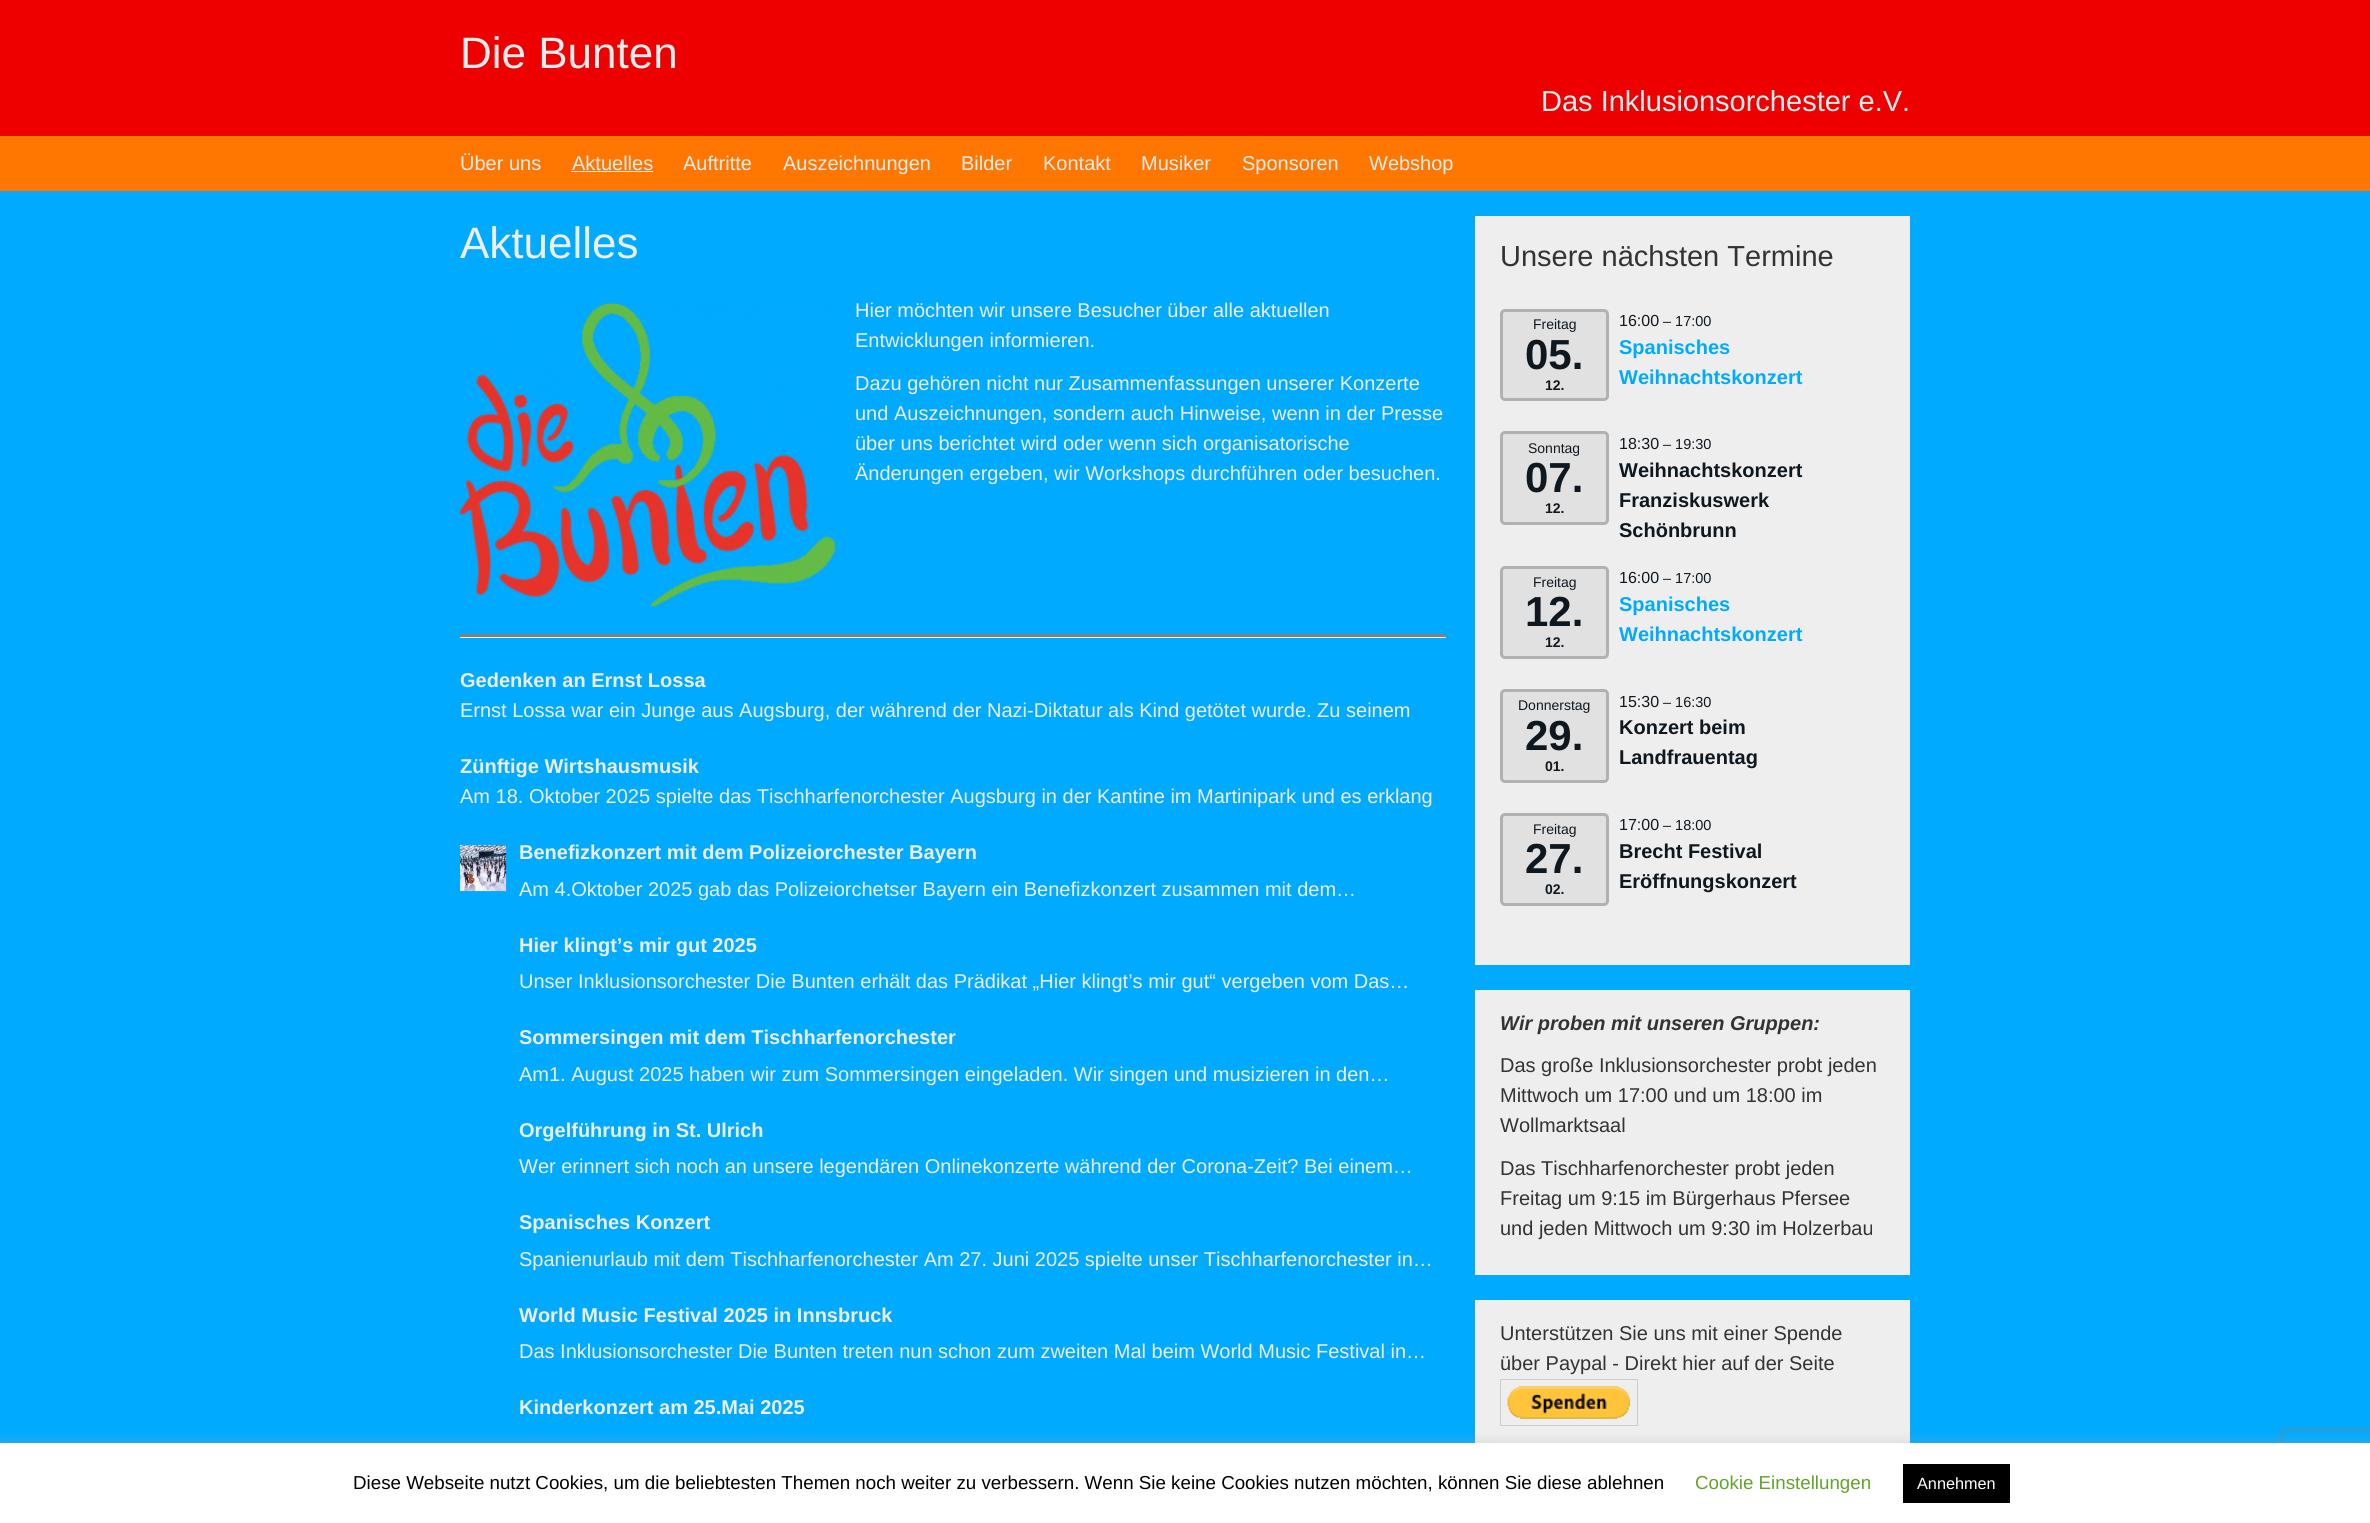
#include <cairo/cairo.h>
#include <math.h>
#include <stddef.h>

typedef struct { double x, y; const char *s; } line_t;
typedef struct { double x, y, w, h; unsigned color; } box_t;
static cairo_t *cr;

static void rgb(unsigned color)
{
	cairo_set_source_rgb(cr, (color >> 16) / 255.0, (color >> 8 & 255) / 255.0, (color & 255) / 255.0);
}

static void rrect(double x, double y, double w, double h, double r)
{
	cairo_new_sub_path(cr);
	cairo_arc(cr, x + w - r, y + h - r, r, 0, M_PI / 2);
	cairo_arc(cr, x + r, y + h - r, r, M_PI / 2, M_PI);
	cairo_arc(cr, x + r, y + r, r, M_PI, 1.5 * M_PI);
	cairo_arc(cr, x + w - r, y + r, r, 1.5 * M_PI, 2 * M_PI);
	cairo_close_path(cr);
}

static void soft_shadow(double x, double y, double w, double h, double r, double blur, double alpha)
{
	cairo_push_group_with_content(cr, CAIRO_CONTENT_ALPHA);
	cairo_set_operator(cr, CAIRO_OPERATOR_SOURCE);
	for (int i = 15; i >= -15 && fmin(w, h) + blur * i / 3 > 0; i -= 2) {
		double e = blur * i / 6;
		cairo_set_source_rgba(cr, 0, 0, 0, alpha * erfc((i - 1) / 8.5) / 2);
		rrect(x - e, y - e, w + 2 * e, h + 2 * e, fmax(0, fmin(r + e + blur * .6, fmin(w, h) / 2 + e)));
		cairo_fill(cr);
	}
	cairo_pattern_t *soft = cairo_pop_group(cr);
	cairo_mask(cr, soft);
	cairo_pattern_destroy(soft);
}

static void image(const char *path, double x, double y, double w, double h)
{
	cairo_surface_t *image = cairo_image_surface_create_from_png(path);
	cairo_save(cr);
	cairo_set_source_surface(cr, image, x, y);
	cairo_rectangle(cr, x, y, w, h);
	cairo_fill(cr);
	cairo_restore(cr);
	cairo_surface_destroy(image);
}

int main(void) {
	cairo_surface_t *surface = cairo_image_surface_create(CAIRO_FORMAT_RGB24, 2370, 1523);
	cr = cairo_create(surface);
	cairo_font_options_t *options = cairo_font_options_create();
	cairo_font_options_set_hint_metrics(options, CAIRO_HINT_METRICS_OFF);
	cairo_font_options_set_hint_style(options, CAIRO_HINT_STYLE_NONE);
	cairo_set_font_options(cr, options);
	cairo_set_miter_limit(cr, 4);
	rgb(0xee0000);
	cairo_paint(cr);
	{
		static const box_t items[] = {
			{0, 136, 2370, 55, 0xff7700},
			{571, 171, 82, 1, 0xeeeeee},
			{0, 191, 2370, 1252, 0x00aaff},
		};
		for (size_t i = 0; i < sizeof items / sizeof *items; i++) {
			rgb(items[i].color);
			cairo_rectangle(cr, items[i].x, items[i].y, items[i].w, items[i].h);
			cairo_fill(cr);
		}
	}
	image("img/1.png", 460, 303, 375, 304);
	rgb(0xeeeeee);
	cairo_rectangle(cr, 460, 637, 986, 1);
	cairo_fill(cr);
	rgb(0x808080);
	cairo_rectangle(cr, 460, 634, 986, 3);
	cairo_fill(cr);
	image("img/2.png", 460, 845, 47, 47);
	rgb(0xeeeeee);
	cairo_rectangle(cr, 1475, 216, 435, 749);
	cairo_fill(cr);
	rgb(0xe1e1e1);
	rrect(1500, 309, 109, 92, 5);
	cairo_fill(cr);
	rrect(1501.5, 310.5, 106, 89, 3.5);
	cairo_set_source_rgba(cr, 0.412, 0.412, 0.412, 0.4);
	cairo_set_line_width(cr, 3);
	cairo_stroke(cr);
	rgb(0xe1e1e1);
	rrect(1500, 431, 109, 94, 5);
	cairo_fill(cr);
	rrect(1501.5, 432.5, 106, 91, 3.5);
	cairo_set_source_rgba(cr, 0.412, 0.412, 0.412, 0.4);
	cairo_stroke(cr);
	rgb(0xe1e1e1);
	rrect(1500, 566, 109, 93, 5);
	cairo_fill(cr);
	rrect(1501.5, 567.5, 106, 90, 3.5);
	cairo_set_source_rgba(cr, 0.412, 0.412, 0.412, 0.4);
	cairo_stroke(cr);
	rgb(0xe1e1e1);
	rrect(1500, 689, 109, 94, 5);
	cairo_fill(cr);
	rrect(1501.5, 690.5, 106, 91, 3.5);
	cairo_set_source_rgba(cr, 0.412, 0.412, 0.412, 0.4);
	cairo_stroke(cr);
	rgb(0xe1e1e1);
	rrect(1500, 813, 109, 93, 5);
	cairo_fill(cr);
	rrect(1501.5, 814.5, 106, 90, 3.5);
	cairo_set_source_rgba(cr, 0.412, 0.412, 0.412, 0.4);
	cairo_stroke(cr);
	rgb(0xeeeeee);
	cairo_rectangle(cr, 1475, 990, 435, 285);
	cairo_fill(cr);
	cairo_rectangle(cr, 1475, 1300, 435, 143);
	cairo_fill(cr);
	cairo_rectangle(cr, 1500.5, 1379.5, 137, 46);
	rgb(0xcccccc);
	cairo_set_line_width(cr, 1);
	cairo_stroke(cr);
	image("img/3.png", 1507, 1386, 123, 33);
	rgb(0xacabab);
	soft_shadow(0, 1441, 2370, 82, 0, 6, 0.3);
	cairo_save(cr);
	cairo_set_fill_rule(cr, CAIRO_FILL_RULE_EVEN_ODD);
	cairo_new_path(cr);
	cairo_move_to(cr, 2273, 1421);
	cairo_line_to(cr, 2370, 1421);
	cairo_line_to(cr, 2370, 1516);
	cairo_line_to(cr, 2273, 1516);
	cairo_close_path(cr);
	cairo_move_to(cr, 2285.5, 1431);
	cairo_line_to(cr, 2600.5, 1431);
	cairo_curve_to(cr, 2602, 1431, 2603, 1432, 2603, 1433.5);
	cairo_line_to(cr, 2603, 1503.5);
	cairo_curve_to(cr, 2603, 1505, 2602, 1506, 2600.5, 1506);
	cairo_line_to(cr, 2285.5, 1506);
	cairo_curve_to(cr, 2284, 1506, 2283, 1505, 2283, 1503.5);
	cairo_line_to(cr, 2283, 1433.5);
	cairo_curve_to(cr, 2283, 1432, 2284, 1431, 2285.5, 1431);
	cairo_close_path(cr);
	cairo_clip(cr);
	rgb(0x808080);
	soft_shadow(2283, 1431, 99, 75, 2.5, 3, 1);
	cairo_restore(cr);
	rgb(0xffffff);
	cairo_rectangle(cr, 0, 1443, 2370, 80);
	cairo_fill(cr);
	rgb(0x000000);
	cairo_rectangle(cr, 1903, 1464, 107, 39);
	cairo_fill(cr);
	cairo_select_font_face(cr, "Liberation Sans", CAIRO_FONT_SLANT_NORMAL, CAIRO_FONT_WEIGHT_NORMAL);
	cairo_set_font_size(cr, 44);
	rgb(0xeeeeee);
	cairo_move_to(cr, 460, 68);
	cairo_show_text(cr, "Die Bunten");
	cairo_set_font_size(cr, 29);
	cairo_move_to(cr, 1541, 111);
	cairo_show_text(cr, "Das Inklusionsorchester e.V.");
	cairo_set_font_size(cr, 20);
	{
		static const line_t items[] = {
			{460, 170, "Über uns"},
			{572, 170, "Aktuelles"},
			{683, 170, "Auftritte"},
			{783, 170, "Auszeichnungen"},
			{961, 170, "Bilder"},
			{1043, 170, "Kontakt"},
			{1141, 170, "Musiker"},
			{1242, 170, "Sponsoren"},
			{1369, 170, "Webshop"},
		};
		for (size_t i = 0; i < sizeof items / sizeof *items; i++) {
			cairo_move_to(cr, items[i].x, items[i].y);
			cairo_show_text(cr, items[i].s);
		}
	}
	cairo_set_font_size(cr, 44);
	cairo_move_to(cr, 460, 258);
	cairo_show_text(cr, "Aktuelles");
	cairo_set_font_size(cr, 20);
	{
		static const line_t items[] = {
			{855, 317, "Hier möchten wir unsere Besucher über alle aktuellen"},
			{855, 347, "Entwicklungen informieren."},
			{855, 390, "Dazu gehören nicht nur Zusammenfassungen unserer Konzerte"},
			{855, 420, "und Auszeichnungen, sondern auch Hinweise, wenn in der Presse"},
			{855, 450, "über uns berichtet wird oder wenn sich organisatorische"},
			{855, 480, "Änderungen ergeben, wir Workshops durchführen oder besuchen."},
		};
		for (size_t i = 0; i < sizeof items / sizeof *items; i++) {
			cairo_move_to(cr, items[i].x, items[i].y);
			cairo_show_text(cr, items[i].s);
		}
	}
	cairo_select_font_face(cr, "Liberation Sans", CAIRO_FONT_SLANT_NORMAL, CAIRO_FONT_WEIGHT_BOLD);
	cairo_move_to(cr, 460, 687);
	cairo_show_text(cr, "Gedenken an Ernst Lossa");
	cairo_select_font_face(cr, "Liberation Sans", CAIRO_FONT_SLANT_NORMAL, CAIRO_FONT_WEIGHT_NORMAL);
	cairo_move_to(cr, 460, 717);
	cairo_show_text(cr, "Ernst Lossa war ein Junge aus Augsburg, der während der Nazi-Diktatur als Kind getötet wurde. Zu seinem");
	cairo_select_font_face(cr, "Liberation Sans", CAIRO_FONT_SLANT_NORMAL, CAIRO_FONT_WEIGHT_BOLD);
	cairo_move_to(cr, 460, 773);
	cairo_show_text(cr, "Zünftige Wirtshausmusik");
	cairo_select_font_face(cr, "Liberation Sans", CAIRO_FONT_SLANT_NORMAL, CAIRO_FONT_WEIGHT_NORMAL);
	cairo_move_to(cr, 460, 803);
	cairo_show_text(cr, "Am 18. Oktober 2025 spielte das Tischharfenorchester Augsburg in der Kantine im Martinipark und es erklang");
	cairo_select_font_face(cr, "Liberation Sans", CAIRO_FONT_SLANT_NORMAL, CAIRO_FONT_WEIGHT_BOLD);
	cairo_move_to(cr, 519, 859);
	cairo_show_text(cr, "Benefizkonzert mit dem Polizeiorchester Bayern");
	cairo_select_font_face(cr, "Liberation Sans", CAIRO_FONT_SLANT_NORMAL, CAIRO_FONT_WEIGHT_NORMAL);
	cairo_move_to(cr, 519, 896);
	cairo_show_text(cr, "Am 4.Oktober 2025 gab das Polizeiorchetser Bayern ein Benefizkonzert zusammen mit dem…");
	cairo_select_font_face(cr, "Liberation Sans", CAIRO_FONT_SLANT_NORMAL, CAIRO_FONT_WEIGHT_BOLD);
	cairo_move_to(cr, 519, 952);
	cairo_show_text(cr, "Hier klingt’s mir gut 2025");
	cairo_select_font_face(cr, "Liberation Sans", CAIRO_FONT_SLANT_NORMAL, CAIRO_FONT_WEIGHT_NORMAL);
	cairo_move_to(cr, 519, 988);
	cairo_show_text(cr, "Unser Inklusionsorchester Die Bunten erhält das Prädikat „Hier klingt’s mir gut“ vergeben vom Das…");
	cairo_select_font_face(cr, "Liberation Sans", CAIRO_FONT_SLANT_NORMAL, CAIRO_FONT_WEIGHT_BOLD);
	cairo_move_to(cr, 519, 1044);
	cairo_show_text(cr, "Sommersingen mit dem Tischharfenorchester");
	cairo_select_font_face(cr, "Liberation Sans", CAIRO_FONT_SLANT_NORMAL, CAIRO_FONT_WEIGHT_NORMAL);
	cairo_move_to(cr, 519, 1081);
	cairo_show_text(cr, "Am1. August 2025 haben wir zum Sommersingen eingeladen. Wir singen und musizieren in den…");
	cairo_select_font_face(cr, "Liberation Sans", CAIRO_FONT_SLANT_NORMAL, CAIRO_FONT_WEIGHT_BOLD);
	cairo_move_to(cr, 519, 1137);
	cairo_show_text(cr, "Orgelführung in St. Ulrich");
	cairo_select_font_face(cr, "Liberation Sans", CAIRO_FONT_SLANT_NORMAL, CAIRO_FONT_WEIGHT_NORMAL);
	cairo_move_to(cr, 519, 1173);
	cairo_show_text(cr, "Wer erinnert sich noch an unsere legendären Onlinekonzerte während der Corona-Zeit? Bei einem…");
	cairo_select_font_face(cr, "Liberation Sans", CAIRO_FONT_SLANT_NORMAL, CAIRO_FONT_WEIGHT_BOLD);
	cairo_move_to(cr, 519, 1229);
	cairo_show_text(cr, "Spanisches Konzert");
	cairo_select_font_face(cr, "Liberation Sans", CAIRO_FONT_SLANT_NORMAL, CAIRO_FONT_WEIGHT_NORMAL);
	cairo_move_to(cr, 519, 1266);
	cairo_show_text(cr, "Spanienurlaub mit dem Tischharfenorchester Am 27. Juni 2025 spielte unser Tischharfenorchester in…");
	cairo_select_font_face(cr, "Liberation Sans", CAIRO_FONT_SLANT_NORMAL, CAIRO_FONT_WEIGHT_BOLD);
	cairo_move_to(cr, 519, 1322);
	cairo_show_text(cr, "World Music Festival 2025 in Innsbruck");
	cairo_select_font_face(cr, "Liberation Sans", CAIRO_FONT_SLANT_NORMAL, CAIRO_FONT_WEIGHT_NORMAL);
	cairo_move_to(cr, 519, 1358);
	cairo_show_text(cr, "Das Inklusionsorchester Die Bunten treten nun schon zum zweiten Mal beim World Music Festival in…");
	cairo_select_font_face(cr, "Liberation Sans", CAIRO_FONT_SLANT_NORMAL, CAIRO_FONT_WEIGHT_BOLD);
	cairo_move_to(cr, 519, 1414);
	cairo_show_text(cr, "Kinderkonzert am 25.Mai 2025");
	cairo_select_font_face(cr, "Liberation Sans", CAIRO_FONT_SLANT_NORMAL, CAIRO_FONT_WEIGHT_NORMAL);
	cairo_set_font_size(cr, 29);
	rgb(0x333333);
	cairo_move_to(cr, 1500, 266);
	cairo_show_text(cr, "Unsere nächsten Termine");
	cairo_set_font_size(cr, 14);
	rgb(0x10181f);
	cairo_move_to(cr, 1533, 329);
	cairo_show_text(cr, "Freitag");
	cairo_select_font_face(cr, "Liberation Sans", CAIRO_FONT_SLANT_NORMAL, CAIRO_FONT_WEIGHT_BOLD);
	cairo_set_font_size(cr, 42);
	cairo_move_to(cr, 1525, 369);
	cairo_show_text(cr, "05.");
	cairo_set_font_size(cr, 14);
	cairo_move_to(cr, 1545, 390);
	cairo_show_text(cr, "12.");
	cairo_select_font_face(cr, "Liberation Sans", CAIRO_FONT_SLANT_NORMAL, CAIRO_FONT_WEIGHT_NORMAL);
	cairo_set_font_size(cr, 16);
	cairo_move_to(cr, 1619, 326);
	cairo_show_text(cr, "16:00");
	cairo_set_font_size(cr, 14.5);
	cairo_move_to(cr, 1663, 326);
	cairo_show_text(cr, "– 17:00");
	cairo_select_font_face(cr, "Liberation Sans", CAIRO_FONT_SLANT_NORMAL, CAIRO_FONT_WEIGHT_BOLD);
	cairo_set_font_size(cr, 20);
	rgb(0x00aaff);
	cairo_move_to(cr, 1619, 354);
	cairo_show_text(cr, "Spanisches");
	cairo_move_to(cr, 1619, 384);
	cairo_show_text(cr, "Weihnachtskonzert");
	cairo_select_font_face(cr, "Liberation Sans", CAIRO_FONT_SLANT_NORMAL, CAIRO_FONT_WEIGHT_NORMAL);
	cairo_set_font_size(cr, 14);
	rgb(0x10181f);
	cairo_move_to(cr, 1528, 453);
	cairo_show_text(cr, "Sonntag");
	cairo_select_font_face(cr, "Liberation Sans", CAIRO_FONT_SLANT_NORMAL, CAIRO_FONT_WEIGHT_BOLD);
	cairo_set_font_size(cr, 42);
	cairo_move_to(cr, 1525, 492);
	cairo_show_text(cr, "07.");
	cairo_set_font_size(cr, 14);
	cairo_move_to(cr, 1545, 513);
	cairo_show_text(cr, "12.");
	cairo_select_font_face(cr, "Liberation Sans", CAIRO_FONT_SLANT_NORMAL, CAIRO_FONT_WEIGHT_NORMAL);
	cairo_set_font_size(cr, 16);
	cairo_move_to(cr, 1619, 449);
	cairo_show_text(cr, "18:30");
	cairo_set_font_size(cr, 14.5);
	cairo_move_to(cr, 1663, 449);
	cairo_show_text(cr, "– 19:30");
	cairo_select_font_face(cr, "Liberation Sans", CAIRO_FONT_SLANT_NORMAL, CAIRO_FONT_WEIGHT_BOLD);
	cairo_set_font_size(cr, 20);
	{
		static const line_t items[] = {
			{1619, 477, "Weihnachtskonzert"},
			{1619, 507, "Franziskuswerk"},
			{1619, 537, "Schönbrunn"},
		};
		for (size_t i = 0; i < sizeof items / sizeof *items; i++) {
			cairo_move_to(cr, items[i].x, items[i].y);
			cairo_show_text(cr, items[i].s);
		}
	}
	cairo_select_font_face(cr, "Liberation Sans", CAIRO_FONT_SLANT_NORMAL, CAIRO_FONT_WEIGHT_NORMAL);
	cairo_set_font_size(cr, 14);
	cairo_move_to(cr, 1533, 587);
	cairo_show_text(cr, "Freitag");
	cairo_select_font_face(cr, "Liberation Sans", CAIRO_FONT_SLANT_NORMAL, CAIRO_FONT_WEIGHT_BOLD);
	cairo_set_font_size(cr, 42);
	cairo_move_to(cr, 1525, 626);
	cairo_show_text(cr, "12.");
	cairo_set_font_size(cr, 14);
	cairo_move_to(cr, 1545, 647);
	cairo_show_text(cr, "12.");
	cairo_select_font_face(cr, "Liberation Sans", CAIRO_FONT_SLANT_NORMAL, CAIRO_FONT_WEIGHT_NORMAL);
	cairo_set_font_size(cr, 16);
	cairo_move_to(cr, 1619, 583);
	cairo_show_text(cr, "16:00");
	cairo_set_font_size(cr, 14.5);
	cairo_move_to(cr, 1663, 583);
	cairo_show_text(cr, "– 17:00");
	cairo_select_font_face(cr, "Liberation Sans", CAIRO_FONT_SLANT_NORMAL, CAIRO_FONT_WEIGHT_BOLD);
	cairo_set_font_size(cr, 20);
	rgb(0x00aaff);
	cairo_move_to(cr, 1619, 611);
	cairo_show_text(cr, "Spanisches");
	cairo_move_to(cr, 1619, 641);
	cairo_show_text(cr, "Weihnachtskonzert");
	cairo_select_font_face(cr, "Liberation Sans", CAIRO_FONT_SLANT_NORMAL, CAIRO_FONT_WEIGHT_NORMAL);
	cairo_set_font_size(cr, 14);
	rgb(0x10181f);
	cairo_move_to(cr, 1518, 710);
	cairo_show_text(cr, "Donnerstag");
	cairo_select_font_face(cr, "Liberation Sans", CAIRO_FONT_SLANT_NORMAL, CAIRO_FONT_WEIGHT_BOLD);
	cairo_set_font_size(cr, 42);
	cairo_move_to(cr, 1525, 750);
	cairo_show_text(cr, "29.");
	cairo_set_font_size(cr, 14);
	cairo_move_to(cr, 1545, 771);
	cairo_show_text(cr, "01.");
	cairo_select_font_face(cr, "Liberation Sans", CAIRO_FONT_SLANT_NORMAL, CAIRO_FONT_WEIGHT_NORMAL);
	cairo_set_font_size(cr, 16);
	cairo_move_to(cr, 1619, 707);
	cairo_show_text(cr, "15:30");
	cairo_set_font_size(cr, 14.5);
	cairo_move_to(cr, 1663, 707);
	cairo_show_text(cr, "– 16:30");
	cairo_select_font_face(cr, "Liberation Sans", CAIRO_FONT_SLANT_NORMAL, CAIRO_FONT_WEIGHT_BOLD);
	cairo_set_font_size(cr, 20);
	cairo_move_to(cr, 1619, 734);
	cairo_show_text(cr, "Konzert beim");
	cairo_move_to(cr, 1619, 764);
	cairo_show_text(cr, "Landfrauentag");
	cairo_select_font_face(cr, "Liberation Sans", CAIRO_FONT_SLANT_NORMAL, CAIRO_FONT_WEIGHT_NORMAL);
	cairo_set_font_size(cr, 14);
	cairo_move_to(cr, 1533, 834);
	cairo_show_text(cr, "Freitag");
	cairo_select_font_face(cr, "Liberation Sans", CAIRO_FONT_SLANT_NORMAL, CAIRO_FONT_WEIGHT_BOLD);
	cairo_set_font_size(cr, 42);
	cairo_move_to(cr, 1525, 873);
	cairo_show_text(cr, "27.");
	cairo_set_font_size(cr, 14);
	cairo_move_to(cr, 1545, 894);
	cairo_show_text(cr, "02.");
	cairo_select_font_face(cr, "Liberation Sans", CAIRO_FONT_SLANT_NORMAL, CAIRO_FONT_WEIGHT_NORMAL);
	cairo_set_font_size(cr, 16);
	cairo_move_to(cr, 1619, 830);
	cairo_show_text(cr, "17:00");
	cairo_set_font_size(cr, 14.5);
	cairo_move_to(cr, 1663, 830);
	cairo_show_text(cr, "– 18:00");
	cairo_select_font_face(cr, "Liberation Sans", CAIRO_FONT_SLANT_NORMAL, CAIRO_FONT_WEIGHT_BOLD);
	cairo_set_font_size(cr, 20);
	cairo_move_to(cr, 1619, 858);
	cairo_show_text(cr, "Brecht Festival");
	cairo_move_to(cr, 1619, 888);
	cairo_show_text(cr, "Eröffnungskonzert");
	cairo_select_font_face(cr, "Liberation Sans", CAIRO_FONT_SLANT_ITALIC, CAIRO_FONT_WEIGHT_BOLD);
	rgb(0x333333);
	cairo_move_to(cr, 1500, 1030);
	cairo_show_text(cr, "Wir proben mit unseren Gruppen:");
	cairo_select_font_face(cr, "Liberation Sans", CAIRO_FONT_SLANT_NORMAL, CAIRO_FONT_WEIGHT_NORMAL);
	{
		static const line_t items[] = {
			{1500, 1072, "Das große Inklusionsorchester probt jeden"},
			{1500, 1102, "Mittwoch um 17:00 und um 18:00 im"},
			{1500, 1132, "Wollmarktsaal"},
			{1500, 1175, "Das Tischharfenorchester probt jeden"},
			{1500, 1205, "Freitag um 9:15 im Bürgerhaus Pfersee"},
			{1500, 1235, "und jeden Mittwoch um 9:30 im Holzerbau"},
			{1500, 1340, "Unterstützen Sie uns mit einer Spende"},
			{1500, 1370, "über Paypal - Direkt hier auf der Seite"},
		};
		for (size_t i = 0; i < sizeof items / sizeof *items; i++) {
			cairo_move_to(cr, items[i].x, items[i].y);
			cairo_show_text(cr, items[i].s);
		}
	}
	cairo_set_font_size(cr, 18.75);
	rgb(0x000000);
	cairo_move_to(cr, 353, 1489);
	cairo_show_text(cr, "Diese Webseite nutzt Cookies, um die beliebtesten Themen noch weiter zu verbessern. Wenn Sie keine Cookies nutzen möchten, können Sie diese ablehnen");
	rgb(0x62a329);
	cairo_move_to(cr, 1695, 1489);
	cairo_show_text(cr, "Cookie Einstellungen");
	cairo_set_font_size(cr, 16.25);
	rgb(0xffffff);
	cairo_move_to(cr, 1917, 1489);
	cairo_show_text(cr, "Annehmen");
	cairo_surface_write_to_png(surface, "page.png");
	cairo_font_options_destroy(options);
	cairo_destroy(cr);
	cairo_surface_destroy(surface);
	return 0;
}
